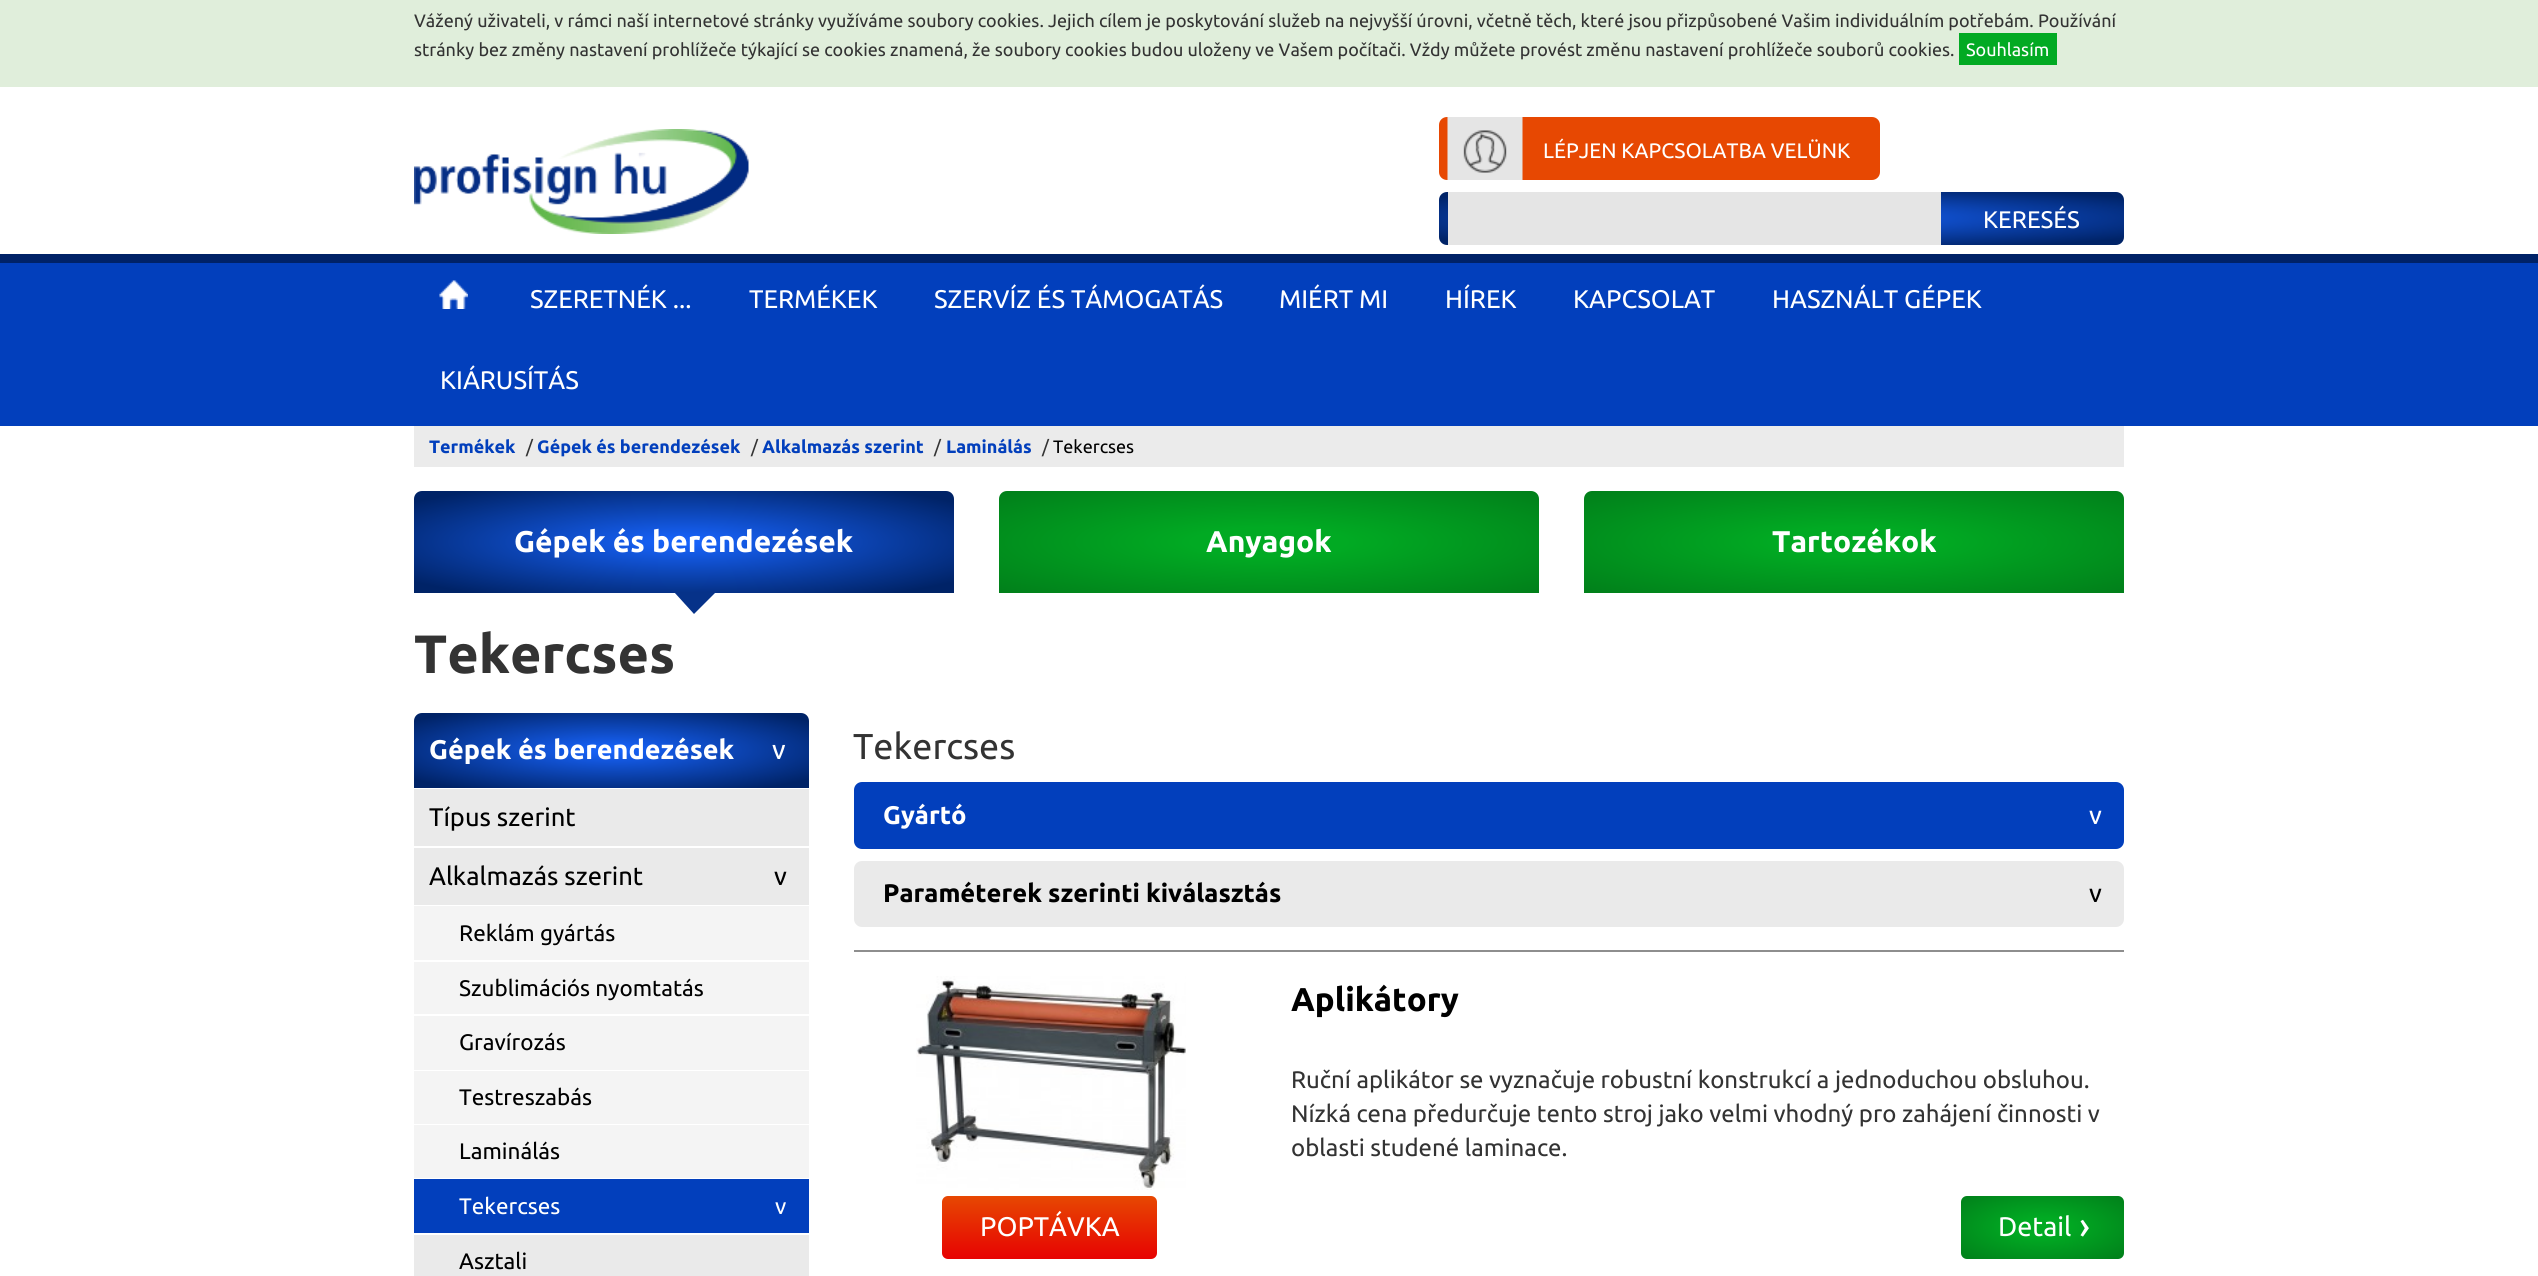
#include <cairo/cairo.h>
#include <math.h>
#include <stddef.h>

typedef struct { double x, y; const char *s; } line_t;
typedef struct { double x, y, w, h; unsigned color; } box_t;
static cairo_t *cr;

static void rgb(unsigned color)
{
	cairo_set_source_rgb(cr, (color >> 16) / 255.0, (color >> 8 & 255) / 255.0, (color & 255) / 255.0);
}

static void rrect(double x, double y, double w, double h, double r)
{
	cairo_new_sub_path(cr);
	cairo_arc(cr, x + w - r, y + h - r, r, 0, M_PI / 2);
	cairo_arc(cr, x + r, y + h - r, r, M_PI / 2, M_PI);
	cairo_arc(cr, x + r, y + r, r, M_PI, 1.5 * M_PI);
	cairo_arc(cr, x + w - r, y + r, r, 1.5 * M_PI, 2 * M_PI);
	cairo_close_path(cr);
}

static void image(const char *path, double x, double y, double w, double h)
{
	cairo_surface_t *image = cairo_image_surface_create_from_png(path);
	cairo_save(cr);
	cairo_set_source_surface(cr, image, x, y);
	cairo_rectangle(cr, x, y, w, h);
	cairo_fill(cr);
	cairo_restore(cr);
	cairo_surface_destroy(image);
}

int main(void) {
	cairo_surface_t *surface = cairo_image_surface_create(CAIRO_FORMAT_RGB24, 2538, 1276);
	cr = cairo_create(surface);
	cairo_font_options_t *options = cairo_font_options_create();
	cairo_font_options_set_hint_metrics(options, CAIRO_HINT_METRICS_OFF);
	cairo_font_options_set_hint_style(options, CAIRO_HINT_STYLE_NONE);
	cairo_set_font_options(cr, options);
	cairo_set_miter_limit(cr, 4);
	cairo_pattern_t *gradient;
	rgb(0xffffff);
	cairo_paint(cr);
	rgb(0xe0eedb);
	cairo_rectangle(cr, 0, 0, 2538, 87);
	cairo_fill(cr);
	rgb(0x02aa23);
	cairo_rectangle(cr, 1959, 33, 98, 32);
	cairo_fill(cr);
	image("img/1.png", 414, 129, 335, 105);
	rgb(0xe74802);
	rrect(1439, 117, 441, 63, 8);
	cairo_fill(cr);
	image("img/2.png", 1447, 117, 76, 63);
	gradient = cairo_pattern_create_radial(0, 0, 0, 0, 0, 1);
	cairo_pattern_set_matrix(gradient, &(cairo_matrix_t){1.0 / 485, 0, 0, 1.0 / 37, -1.0 * 1781 / 485, -1.0 * 218 / 37});
	cairo_pattern_add_color_stop_rgba(gradient, 0, 0.094, 0.396, 1, 1);
	cairo_pattern_add_color_stop_rgba(gradient, 0.9, 0, 0.137, 0.404, 1);
	cairo_set_source(cr, gradient);
	cairo_pattern_destroy(gradient);
	rrect(1439, 192, 685, 53, 8);
	cairo_fill(cr);
	{
		static const box_t items[] = {
			{1448, 192, 493, 53, 0xe5e5e5},
			{0, 263, 2538, 163, 0x023fbc},
			{0, 254, 2538, 9, 0x002267},
		};
		for (size_t i = 0; i < sizeof items / sizeof *items; i++) {
			rgb(items[i].color);
			cairo_rectangle(cr, items[i].x, items[i].y, items[i].w, items[i].h);
			cairo_fill(cr);
		}
	}
	image("img/3.png", 439, 280, 29, 29);
	rgb(0xebebeb);
	cairo_rectangle(cr, 414, 426, 1710, 41);
	cairo_fill(cr);
	gradient = cairo_pattern_create_radial(0, 0, 0, 0, 0, 1);
	cairo_pattern_set_matrix(gradient, &(cairo_matrix_t){1.0 / 382, 0, 0, 1.0 / 72, -1.0 * 684 / 382, -1.0 * 542 / 72});
	cairo_pattern_add_color_stop_rgba(gradient, 0, 0.094, 0.396, 1, 1);
	cairo_pattern_add_color_stop_rgba(gradient, 0.9, 0, 0.137, 0.404, 1);
	cairo_set_source(cr, gradient);
	cairo_pattern_destroy(gradient);
	cairo_new_path(cr);
	cairo_move_to(cr, 422, 491);
	cairo_line_to(cr, 946, 491);
	cairo_curve_to(cr, 950.5, 491, 954, 494.5, 954, 499);
	cairo_line_to(cr, 954, 593);
	cairo_line_to(cr, 414, 593);
	cairo_line_to(cr, 414, 499);
	cairo_curve_to(cr, 414, 494.5, 417.5, 491, 422, 491);
	cairo_close_path(cr);
	cairo_fill(cr);
	rgb(0x063289);
	cairo_new_path(cr);
	cairo_move_to(cr, 674, 592);
	cairo_line_to(cr, 716, 592);
	cairo_line_to(cr, 694, 614);
	cairo_close_path(cr);
	cairo_fill(cr);
	gradient = cairo_pattern_create_radial(0, 0, 0, 0, 0, 1);
	cairo_pattern_set_matrix(gradient, &(cairo_matrix_t){1.0 / 382, 0, 0, 1.0 / 72, -1.0 * 1269 / 382, -1.0 * 542 / 72});
	cairo_pattern_add_color_stop_rgba(gradient, 0.2, 0.004, 0.667, 0.137, 1);
	cairo_pattern_add_color_stop_rgba(gradient, 1, 0.004, 0.498, 0.102, 1);
	cairo_set_source(cr, gradient);
	cairo_pattern_destroy(gradient);
	cairo_new_path(cr);
	cairo_move_to(cr, 1007, 491);
	cairo_line_to(cr, 1531, 491);
	cairo_curve_to(cr, 1535.5, 491, 1539, 494.5, 1539, 499);
	cairo_line_to(cr, 1539, 593);
	cairo_line_to(cr, 999, 593);
	cairo_line_to(cr, 999, 499);
	cairo_curve_to(cr, 999, 494.5, 1002.5, 491, 1007, 491);
	cairo_close_path(cr);
	cairo_fill(cr);
	gradient = cairo_pattern_create_radial(0, 0, 0, 0, 0, 1);
	cairo_pattern_set_matrix(gradient, &(cairo_matrix_t){1.0 / 382, 0, 0, 1.0 / 72, -1.0 * 1854 / 382, -1.0 * 542 / 72});
	cairo_pattern_add_color_stop_rgba(gradient, 0.2, 0.004, 0.667, 0.137, 1);
	cairo_pattern_add_color_stop_rgba(gradient, 1, 0.004, 0.498, 0.102, 1);
	cairo_set_source(cr, gradient);
	cairo_pattern_destroy(gradient);
	cairo_new_path(cr);
	cairo_move_to(cr, 1592, 491);
	cairo_line_to(cr, 2116, 491);
	cairo_curve_to(cr, 2120.5, 491, 2124, 494.5, 2124, 499);
	cairo_line_to(cr, 2124, 593);
	cairo_line_to(cr, 1584, 593);
	cairo_line_to(cr, 1584, 499);
	cairo_curve_to(cr, 1584, 494.5, 1587.5, 491, 1592, 491);
	cairo_close_path(cr);
	cairo_fill(cr);
	gradient = cairo_pattern_create_radial(0, 0, 0, 0, 0, 1);
	cairo_pattern_set_matrix(gradient, &(cairo_matrix_t){1.0 / 279, 0, 0, 1.0 / 53, -1.0 * 611 / 279, -1.0 * 750 / 53});
	cairo_pattern_add_color_stop_rgba(gradient, 0, 0.094, 0.396, 1, 1);
	cairo_pattern_add_color_stop_rgba(gradient, 0.9, 0, 0.137, 0.404, 1);
	cairo_set_source(cr, gradient);
	cairo_pattern_destroy(gradient);
	cairo_new_path(cr);
	cairo_move_to(cr, 422, 713);
	cairo_line_to(cr, 801, 713);
	cairo_curve_to(cr, 805.5, 713, 809, 716.5, 809, 721);
	cairo_line_to(cr, 809, 788);
	cairo_line_to(cr, 414, 788);
	cairo_line_to(cr, 414, 721);
	cairo_curve_to(cr, 414, 716.5, 417.5, 713, 422, 713);
	cairo_close_path(cr);
	cairo_fill(cr);
	{
		static const box_t items[] = {
			{414, 789, 395, 57, 0xeaeaea},
			{414, 848, 395, 57, 0xeaeaea},
			{414, 906, 395, 54, 0xf4f4f4},
			{414, 962, 395, 52, 0xf4f4f4},
			{414, 1016, 395, 54, 0xf4f4f4},
			{414, 1071, 395, 53, 0xf4f4f4},
			{414, 1125, 395, 53, 0xf4f4f4},
			{414, 1179, 395, 54, 0x023fbc},
			{414, 1235, 395, 41, 0xeaeaea},
		};
		for (size_t i = 0; i < sizeof items / sizeof *items; i++) {
			rgb(items[i].color);
			cairo_rectangle(cr, items[i].x, items[i].y, items[i].w, items[i].h);
			cairo_fill(cr);
		}
	}
	rgb(0x023fbc);
	rrect(854, 782, 1270, 67, 8);
	cairo_fill(cr);
	rgb(0xeaeaea);
	rrect(854, 861, 1270, 66, 8);
	cairo_fill(cr);
	rgb(0x8e8e8e);
	cairo_rectangle(cr, 854, 950, 1270, 2);
	cairo_fill(cr);
	image("img/4.png", 916, 976, 270, 214);
	gradient = cairo_pattern_create_linear(1049, 1196, 1049, 1259);
	cairo_pattern_add_color_stop_rgba(gradient, 0, 0.906, 0.282, 0.008, 1);
	cairo_pattern_add_color_stop_rgba(gradient, 1, 0.906, 0.008, 0.008, 1);
	cairo_set_source(cr, gradient);
	cairo_pattern_destroy(gradient);
	rrect(942, 1196, 215, 63, 6);
	cairo_fill(cr);
	gradient = cairo_pattern_create_radial(0, 0, 0, 0, 0, 1);
	cairo_pattern_set_matrix(gradient, &(cairo_matrix_t){1.0 / 116, 0, 0, 1.0 / 45, -1.0 * 2042 / 116, -1.0 * 1227 / 45});
	cairo_pattern_add_color_stop_rgba(gradient, 0.2, 0.004, 0.667, 0.137, 1);
	cairo_pattern_add_color_stop_rgba(gradient, 1, 0.004, 0.498, 0.102, 1);
	cairo_set_source(cr, gradient);
	cairo_pattern_destroy(gradient);
	rrect(1961, 1196, 163, 63, 6);
	cairo_fill(cr);
	cairo_select_font_face(cr, "Ubuntu", CAIRO_FONT_SLANT_NORMAL, CAIRO_FONT_WEIGHT_NORMAL);
	cairo_set_font_size(cr, 18);
	rgb(0x333333);
	cairo_move_to(cr, 414, 27);
	cairo_show_text(cr, "Vážený uživateli, v rámci naší internetové stránky využíváme soubory cookies. Jejich cílem je poskytování služeb na nejvyšší úrovni, včetně těch, které jsou přizpůsobené Vašim individuálním potřebám. Používání");
	cairo_move_to(cr, 414, 56);
	cairo_show_text(cr, "stránky bez změny nastavení prohlížeče týkající se cookies znamená, že soubory cookies budou uloženy ve Vašem počítači. Vždy můžete provést změnu nastavení prohlížeče souborů cookies.");
	rgb(0xffffff);
	cairo_move_to(cr, 1966, 56);
	cairo_show_text(cr, "Souhlasím");
	cairo_set_font_size(cr, 21);
	cairo_move_to(cr, 1543, 158);
	cairo_show_text(cr, "LÉPJEN KAPCSOLATBA VELÜNK");
	cairo_set_font_size(cr, 24);
	cairo_move_to(cr, 1983, 228);
	cairo_show_text(cr, "KERESÉS");
	cairo_set_font_size(cr, 25.5);
	{
		static const line_t items[] = {
			{530, 308, "SZERETNÉK ..."},
			{749, 308, "TERMÉKEK"},
			{934, 308, "SZERVÍZ ÉS TÁMOGATÁS"},
			{1279, 308, "MIÉRT MI"},
			{1445, 308, "HÍREK"},
			{1573, 308, "KAPCSOLAT"},
			{1772, 308, "HASZNÁLT GÉPEK"},
			{440, 389, "KIÁRUSÍTÁS"},
		};
		for (size_t i = 0; i < sizeof items / sizeof *items; i++) {
			cairo_move_to(cr, items[i].x, items[i].y);
			cairo_show_text(cr, items[i].s);
		}
	}
	cairo_select_font_face(cr, "Ubuntu", CAIRO_FONT_SLANT_NORMAL, CAIRO_FONT_WEIGHT_BOLD);
	cairo_set_font_size(cr, 18);
	rgb(0x023fbc);
	cairo_move_to(cr, 429, 453);
	cairo_show_text(cr, "Termékek");
	cairo_select_font_face(cr, "Ubuntu", CAIRO_FONT_SLANT_NORMAL, CAIRO_FONT_WEIGHT_NORMAL);
	rgb(0x333333);
	cairo_move_to(cr, 526, 453);
	cairo_show_text(cr, "/");
	cairo_select_font_face(cr, "Ubuntu", CAIRO_FONT_SLANT_NORMAL, CAIRO_FONT_WEIGHT_BOLD);
	rgb(0x023fbc);
	cairo_move_to(cr, 537, 453);
	cairo_show_text(cr, "Gépek és berendezések");
	cairo_select_font_face(cr, "Ubuntu", CAIRO_FONT_SLANT_NORMAL, CAIRO_FONT_WEIGHT_NORMAL);
	rgb(0x333333);
	cairo_move_to(cr, 751, 453);
	cairo_show_text(cr, "/");
	cairo_select_font_face(cr, "Ubuntu", CAIRO_FONT_SLANT_NORMAL, CAIRO_FONT_WEIGHT_BOLD);
	rgb(0x023fbc);
	cairo_move_to(cr, 762, 453);
	cairo_show_text(cr, "Alkalmazás szerint");
	cairo_select_font_face(cr, "Ubuntu", CAIRO_FONT_SLANT_NORMAL, CAIRO_FONT_WEIGHT_NORMAL);
	rgb(0x333333);
	cairo_move_to(cr, 934, 453);
	cairo_show_text(cr, "/");
	cairo_select_font_face(cr, "Ubuntu", CAIRO_FONT_SLANT_NORMAL, CAIRO_FONT_WEIGHT_BOLD);
	rgb(0x023fbc);
	cairo_move_to(cr, 946, 453);
	cairo_show_text(cr, "Laminálás");
	cairo_select_font_face(cr, "Ubuntu", CAIRO_FONT_SLANT_NORMAL, CAIRO_FONT_WEIGHT_NORMAL);
	rgb(0x333333);
	cairo_move_to(cr, 1042, 453);
	cairo_show_text(cr, "/");
	rgb(0x000000);
	cairo_move_to(cr, 1053, 453);
	cairo_show_text(cr, "Tekercses");
	cairo_select_font_face(cr, "Ubuntu", CAIRO_FONT_SLANT_NORMAL, CAIRO_FONT_WEIGHT_BOLD);
	cairo_set_font_size(cr, 30);
	rgb(0xffffff);
	{
		static const line_t items[] = {
			{514, 552, "Gépek és berendezések"},
			{1206, 552, "Anyagok"},
			{1772, 552, "Tartozékok"},
		};
		for (size_t i = 0; i < sizeof items / sizeof *items; i++) {
			cairo_move_to(cr, items[i].x, items[i].y);
			cairo_show_text(cr, items[i].s);
		}
	}
	cairo_set_font_size(cr, 54);
	rgb(0x333333);
	cairo_move_to(cr, 414, 673);
	cairo_show_text(cr, "Tekercses");
	cairo_set_font_size(cr, 27);
	rgb(0xffffff);
	cairo_move_to(cr, 429, 759);
	cairo_show_text(cr, "Gépek és berendezések");
	cairo_select_font_face(cr, "Ubuntu", CAIRO_FONT_SLANT_NORMAL, CAIRO_FONT_WEIGHT_NORMAL);
	cairo_move_to(cr, 772, 759);
	cairo_show_text(cr, "v");
	cairo_set_font_size(cr, 25.5);
	rgb(0x000000);
	{
		static const line_t items[] = {
			{429, 826, "Típus szerint"},
			{429, 885, "Alkalmazás szerint"},
			{774, 885, "v"},
		};
		for (size_t i = 0; i < sizeof items / sizeof *items; i++) {
			cairo_move_to(cr, items[i].x, items[i].y);
			cairo_show_text(cr, items[i].s);
		}
	}
	cairo_set_font_size(cr, 22.5);
	{
		static const line_t items[] = {
			{459, 941, "Reklám gyártás"},
			{459, 996, "Szublimációs nyomtatás"},
			{459, 1050, "Gravírozás"},
			{459, 1105, "Testreszabás"},
			{459, 1159, "Laminálás"},
		};
		for (size_t i = 0; i < sizeof items / sizeof *items; i++) {
			cairo_move_to(cr, items[i].x, items[i].y);
			cairo_show_text(cr, items[i].s);
		}
	}
	rgb(0xffffff);
	cairo_move_to(cr, 459, 1214);
	cairo_show_text(cr, "Tekercses");
	cairo_move_to(cr, 775, 1214);
	cairo_show_text(cr, "v");
	rgb(0x000000);
	cairo_move_to(cr, 459, 1269);
	cairo_show_text(cr, "Asztali");
	cairo_set_font_size(cr, 36);
	rgb(0x333333);
	cairo_move_to(cr, 853, 759);
	cairo_show_text(cr, "Tekercses");
	cairo_select_font_face(cr, "Ubuntu", CAIRO_FONT_SLANT_NORMAL, CAIRO_FONT_WEIGHT_BOLD);
	cairo_set_font_size(cr, 25.5);
	rgb(0xffffff);
	cairo_move_to(cr, 883, 824);
	cairo_show_text(cr, "Gyártó");
	cairo_select_font_face(cr, "Ubuntu", CAIRO_FONT_SLANT_NORMAL, CAIRO_FONT_WEIGHT_NORMAL);
	cairo_move_to(cr, 2089, 824);
	cairo_show_text(cr, "v");
	cairo_select_font_face(cr, "Ubuntu", CAIRO_FONT_SLANT_NORMAL, CAIRO_FONT_WEIGHT_BOLD);
	rgb(0x000000);
	cairo_move_to(cr, 883, 902);
	cairo_show_text(cr, "Paraméterek szerinti kiválasztás");
	cairo_select_font_face(cr, "Ubuntu", CAIRO_FONT_SLANT_NORMAL, CAIRO_FONT_WEIGHT_NORMAL);
	cairo_move_to(cr, 2089, 902);
	cairo_show_text(cr, "v");
	cairo_select_font_face(cr, "Ubuntu", CAIRO_FONT_SLANT_NORMAL, CAIRO_FONT_WEIGHT_BOLD);
	cairo_set_font_size(cr, 33);
	cairo_move_to(cr, 1291, 1011);
	cairo_show_text(cr, "Aplikátory");
	cairo_select_font_face(cr, "Ubuntu", CAIRO_FONT_SLANT_NORMAL, CAIRO_FONT_WEIGHT_NORMAL);
	cairo_set_font_size(cr, 24);
	rgb(0x333333);
	{
		static const line_t items[] = {
			{1291, 1088, "Ruční aplikátor se vyznačuje robustní konstrukcí a jednoduchou obsluhou."},
			{1291, 1122, "Nízká cena předurčuje tento stroj jako velmi vhodný pro zahájení činnosti v"},
			{1291, 1156, "oblasti studené laminace."},
		};
		for (size_t i = 0; i < sizeof items / sizeof *items; i++) {
			cairo_move_to(cr, items[i].x, items[i].y);
			cairo_show_text(cr, items[i].s);
		}
	}
	cairo_set_font_size(cr, 27);
	rgb(0xffffff);
	cairo_move_to(cr, 980, 1236);
	cairo_show_text(cr, "POPTÁVKA");
	cairo_move_to(cr, 1998, 1236);
	cairo_show_text(cr, "Detail");
	cairo_set_font_size(cr, 38);
	cairo_move_to(cr, 2079, 1239);
	cairo_show_text(cr, "›");
	cairo_surface_write_to_png(surface, "page.png");
	cairo_font_options_destroy(options);
	cairo_destroy(cr);
	cairo_surface_destroy(surface);
	return 0;
}
